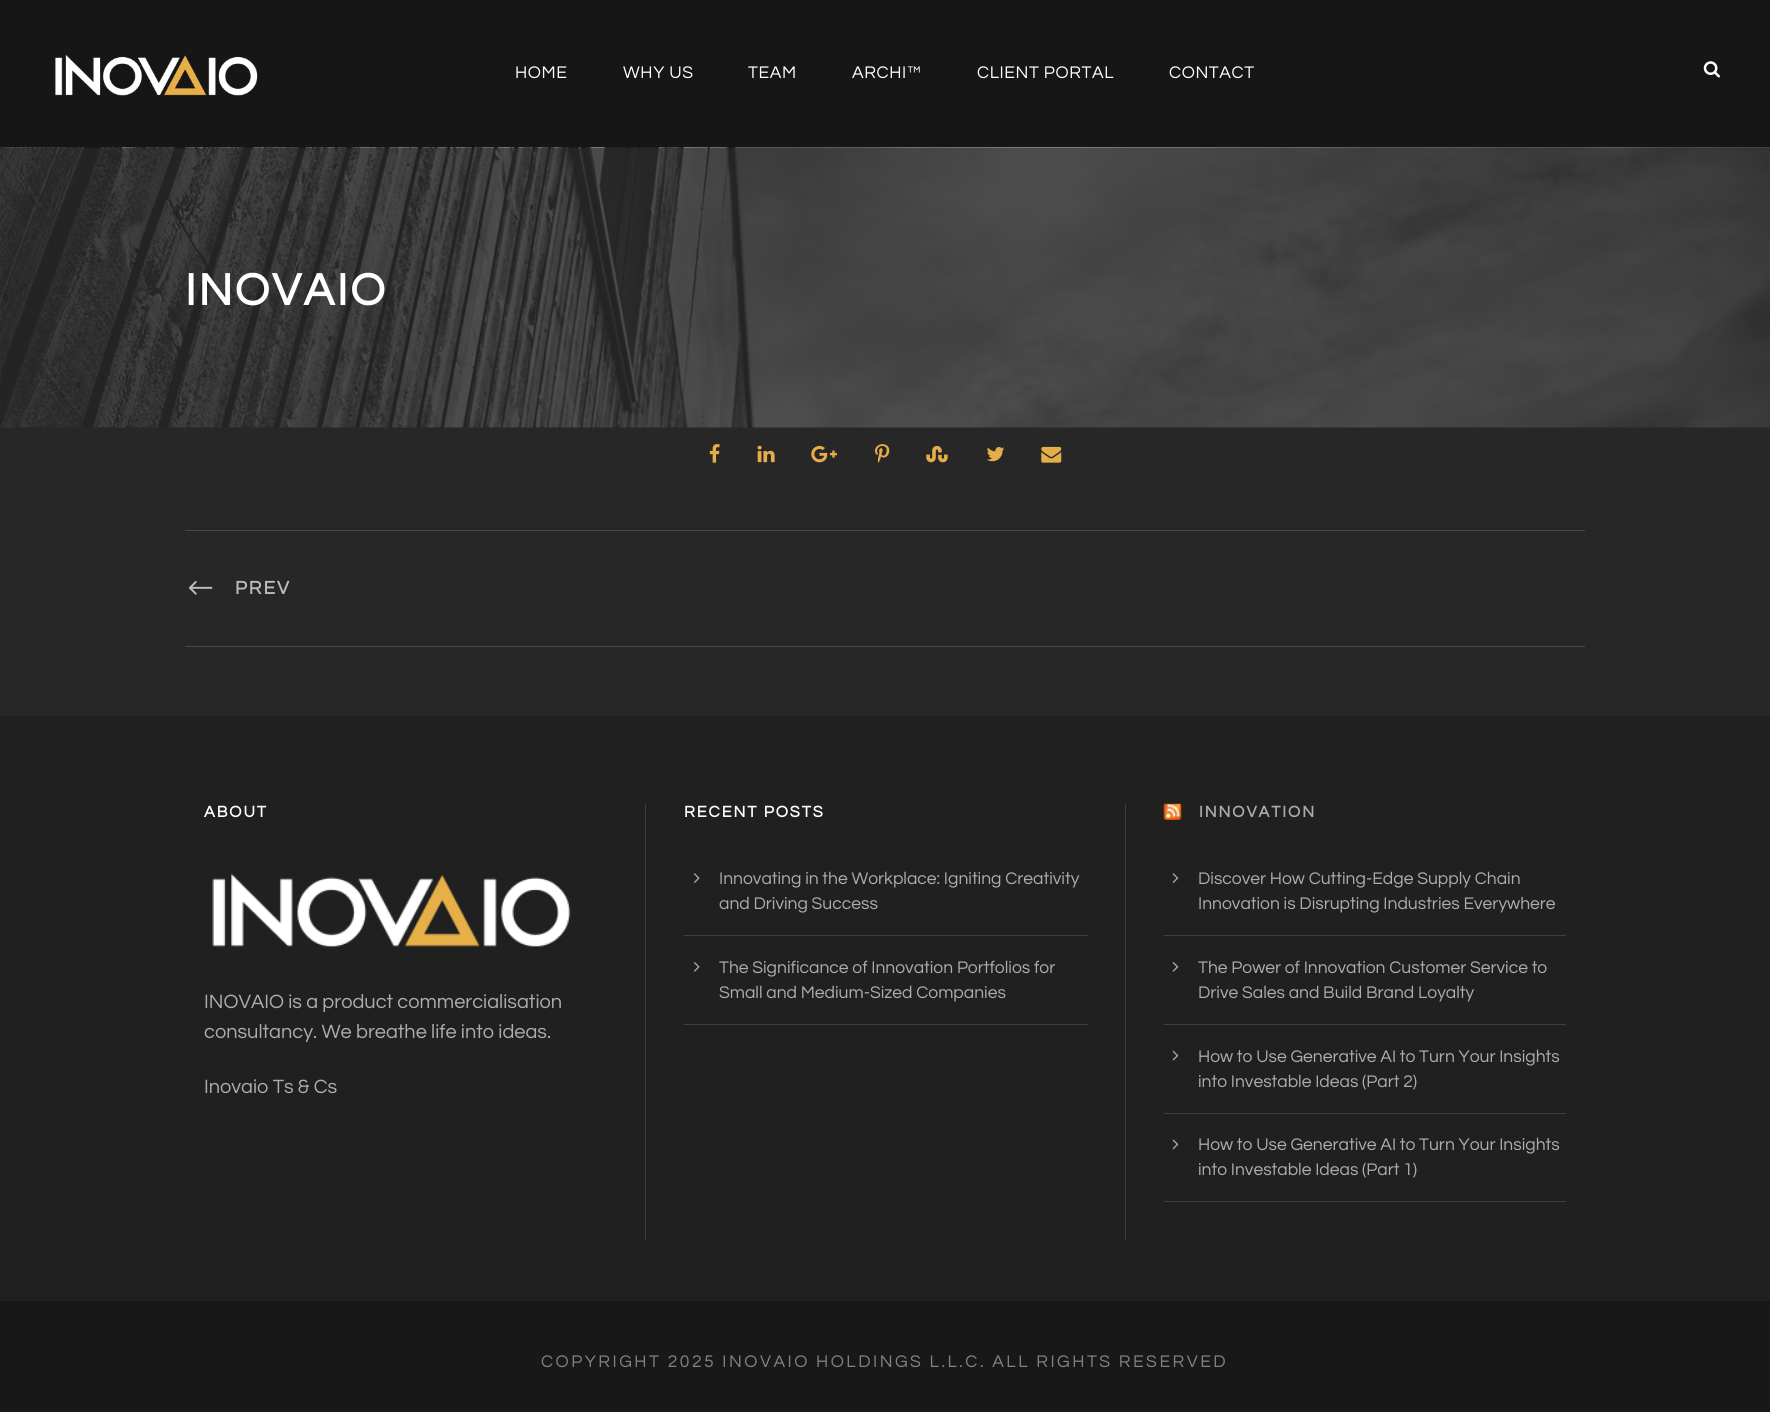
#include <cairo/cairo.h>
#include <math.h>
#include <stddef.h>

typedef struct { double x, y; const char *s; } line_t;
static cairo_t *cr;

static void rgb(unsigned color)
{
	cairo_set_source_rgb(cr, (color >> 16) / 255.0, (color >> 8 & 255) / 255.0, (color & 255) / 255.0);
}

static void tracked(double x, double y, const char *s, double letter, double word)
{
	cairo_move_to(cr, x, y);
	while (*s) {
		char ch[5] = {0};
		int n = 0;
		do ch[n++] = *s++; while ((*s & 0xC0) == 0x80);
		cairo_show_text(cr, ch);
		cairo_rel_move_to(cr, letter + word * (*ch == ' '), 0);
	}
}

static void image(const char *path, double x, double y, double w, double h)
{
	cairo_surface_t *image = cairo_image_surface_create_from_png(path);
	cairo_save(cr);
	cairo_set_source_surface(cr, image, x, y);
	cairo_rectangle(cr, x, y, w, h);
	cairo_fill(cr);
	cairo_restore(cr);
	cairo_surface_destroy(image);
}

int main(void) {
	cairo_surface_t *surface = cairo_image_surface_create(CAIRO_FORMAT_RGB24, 1770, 1412);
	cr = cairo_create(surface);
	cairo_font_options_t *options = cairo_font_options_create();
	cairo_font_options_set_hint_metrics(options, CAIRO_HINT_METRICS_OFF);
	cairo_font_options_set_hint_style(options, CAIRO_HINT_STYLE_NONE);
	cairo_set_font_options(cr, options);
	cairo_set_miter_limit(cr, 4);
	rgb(0x272727);
	cairo_paint(cr);
	rgb(0x161616);
	cairo_rectangle(cr, 0, 0, 1770, 148);
	cairo_fill(cr);
	image("img/1.png", 55, 54, 203, 42);
	image("img/2.png", 1703, 61, 17, 17);
	image("img/3.png", 0, 147, 1770, 281);
	image("img/4.png", 709, 444, 11, 19);
	image("img/5.png", 757, 445, 18, 18);
	image("img/6.png", 811, 445, 26, 18);
	image("img/7.png", 875, 444, 15, 19);
	image("img/8.png", 926, 445, 22, 18);
	image("img/9.png", 987, 447, 18, 15);
	image("img/10.png", 1041, 446, 21, 17);
	rgb(0x494949);
	cairo_rectangle(cr, 185, 530, 1400, 1);
	cairo_fill(cr);
	cairo_rectangle(cr, 185, 646, 1400, 1);
	cairo_fill(cr);
	image("img/11.png", 188, 581, 25, 14);
	rgb(0x202020);
	cairo_rectangle(cr, 0, 716, 1770, 585);
	cairo_fill(cr);
	image("img/12.png", 212, 873, 359, 74);
	rgb(0x3f3f3f);
	cairo_rectangle(cr, 645, 804, 1, 435);
	cairo_fill(cr);
	cairo_rectangle(cr, 684, 935, 404, 1);
	cairo_fill(cr);
	image("img/13.png", 693, 873, 7, 10);
	cairo_rectangle(cr, 684, 1024, 404, 1);
	cairo_fill(cr);
	image("img/14.png", 693, 962, 7, 10);
	cairo_rectangle(cr, 1125, 804, 1, 435);
	cairo_fill(cr);
	image("img/15.png", 1163, 803, 19, 17);
	cairo_rectangle(cr, 1164, 935, 402, 1);
	cairo_fill(cr);
	image("img/16.png", 1172, 873, 7, 10);
	cairo_rectangle(cr, 1164, 1024, 402, 1);
	cairo_fill(cr);
	image("img/17.png", 1172, 962, 7, 10);
	cairo_rectangle(cr, 1164, 1113, 402, 1);
	cairo_fill(cr);
	image("img/18.png", 1172, 1050, 7, 11);
	cairo_rectangle(cr, 1164, 1201, 402, 1);
	cairo_fill(cr);
	image("img/19.png", 1172, 1139, 7, 11);
	rgb(0x181818);
	cairo_rectangle(cr, 0, 1301, 1770, 111);
	cairo_fill(cr);
	cairo_select_font_face(cr, "Questrial", CAIRO_FONT_SLANT_NORMAL, CAIRO_FONT_WEIGHT_NORMAL);
	cairo_set_font_size(cr, 17.5);
	rgb(0xffffff);
	{
		static const line_t items[] = {
			{515, 78, "HOME"},
			{623, 78, "WHY US"},
			{748, 78, "TEAM"},
			{852, 78, "ARCHI™"},
			{977, 78, "CLIENT PORTAL"},
			{1169, 78, "CONTACT"},
		};
		for (size_t i = 0; i < sizeof items / sizeof *items; i++) {
			tracked(items[i].x, items[i].y, items[i].s, 0.6, 0);
		}
	}
	cairo_select_font_face(cr, "Questrial", CAIRO_FONT_SLANT_NORMAL, CAIRO_FONT_WEIGHT_BOLD);
	cairo_set_font_size(cr, 46.25);
	tracked(185, 305, "INOVAIO", 2.5, 0);
	cairo_set_font_size(cr, 19);
	rgb(0xbcbcbc);
	tracked(235, 594, "PREV", 1.9, 0);
	cairo_set_font_size(cr, 16.25);
	rgb(0xffffff);
	tracked(204, 817, "ABOUT", 1.9, 0);
	cairo_select_font_face(cr, "Questrial", CAIRO_FONT_SLANT_NORMAL, CAIRO_FONT_WEIGHT_NORMAL);
	cairo_set_font_size(cr, 20);
	rgb(0xadadad);
	{
		static const line_t items[] = {
			{204, 1008, "INOVAIO is a product commercialisation"},
			{204, 1038, "consultancy. We breathe life into ideas."},
			{204, 1093, "Inovaio Ts & Cs"},
		};
		for (size_t i = 0; i < sizeof items / sizeof *items; i++) {
			cairo_move_to(cr, items[i].x, items[i].y);
			cairo_show_text(cr, items[i].s);
		}
	}
	cairo_select_font_face(cr, "Questrial", CAIRO_FONT_SLANT_NORMAL, CAIRO_FONT_WEIGHT_BOLD);
	cairo_set_font_size(cr, 16.25);
	rgb(0xffffff);
	tracked(684, 817, "RECENT POSTS", 1.9, 0);
	cairo_select_font_face(cr, "Questrial", CAIRO_FONT_SLANT_NORMAL, CAIRO_FONT_WEIGHT_NORMAL);
	cairo_set_font_size(cr, 17.5);
	rgb(0xadadad);
	{
		static const line_t items[] = {
			{719, 884, "Innovating in the Workplace: Igniting Creativity"},
			{719, 909, "and Driving Success"},
			{719, 973, "The Significance of Innovation Portfolios for"},
			{719, 998, "Small and Medium-Sized Companies"},
		};
		for (size_t i = 0; i < sizeof items / sizeof *items; i++) {
			cairo_move_to(cr, items[i].x, items[i].y);
			cairo_show_text(cr, items[i].s);
		}
	}
	cairo_select_font_face(cr, "Questrial", CAIRO_FONT_SLANT_NORMAL, CAIRO_FONT_WEIGHT_BOLD);
	cairo_set_font_size(cr, 16.25);
	tracked(1199, 817, "INNOVATION", 1.9, 0);
	cairo_select_font_face(cr, "Questrial", CAIRO_FONT_SLANT_NORMAL, CAIRO_FONT_WEIGHT_NORMAL);
	cairo_set_font_size(cr, 17.5);
	{
		static const line_t items[] = {
			{1198, 884, "Discover How Cutting-Edge Supply Chain"},
			{1198, 909, "Innovation is Disrupting Industries Everywhere"},
			{1198, 973, "The Power of Innovation Customer Service to"},
			{1198, 998, "Drive Sales and Build Brand Loyalty"},
			{1198, 1062, "How to Use Generative AI to Turn Your Insights"},
			{1198, 1087, "into Investable Ideas (Part 2)"},
			{1198, 1150, "How to Use Generative AI to Turn Your Insights"},
			{1198, 1175, "into Investable Ideas (Part 1)"},
		};
		for (size_t i = 0; i < sizeof items / sizeof *items; i++) {
			cairo_move_to(cr, items[i].x, items[i].y);
			cairo_show_text(cr, items[i].s);
		}
	}
	rgb(0x838383);
	tracked(541, 1367, "COPYRIGHT 2025 INOVAIO HOLDINGS L.L.C. ALL RIGHTS RESERVED", 2.5, 0);
	cairo_surface_write_to_png(surface, "page.png");
	cairo_font_options_destroy(options);
	cairo_destroy(cr);
	cairo_surface_destroy(surface);
	return 0;
}
